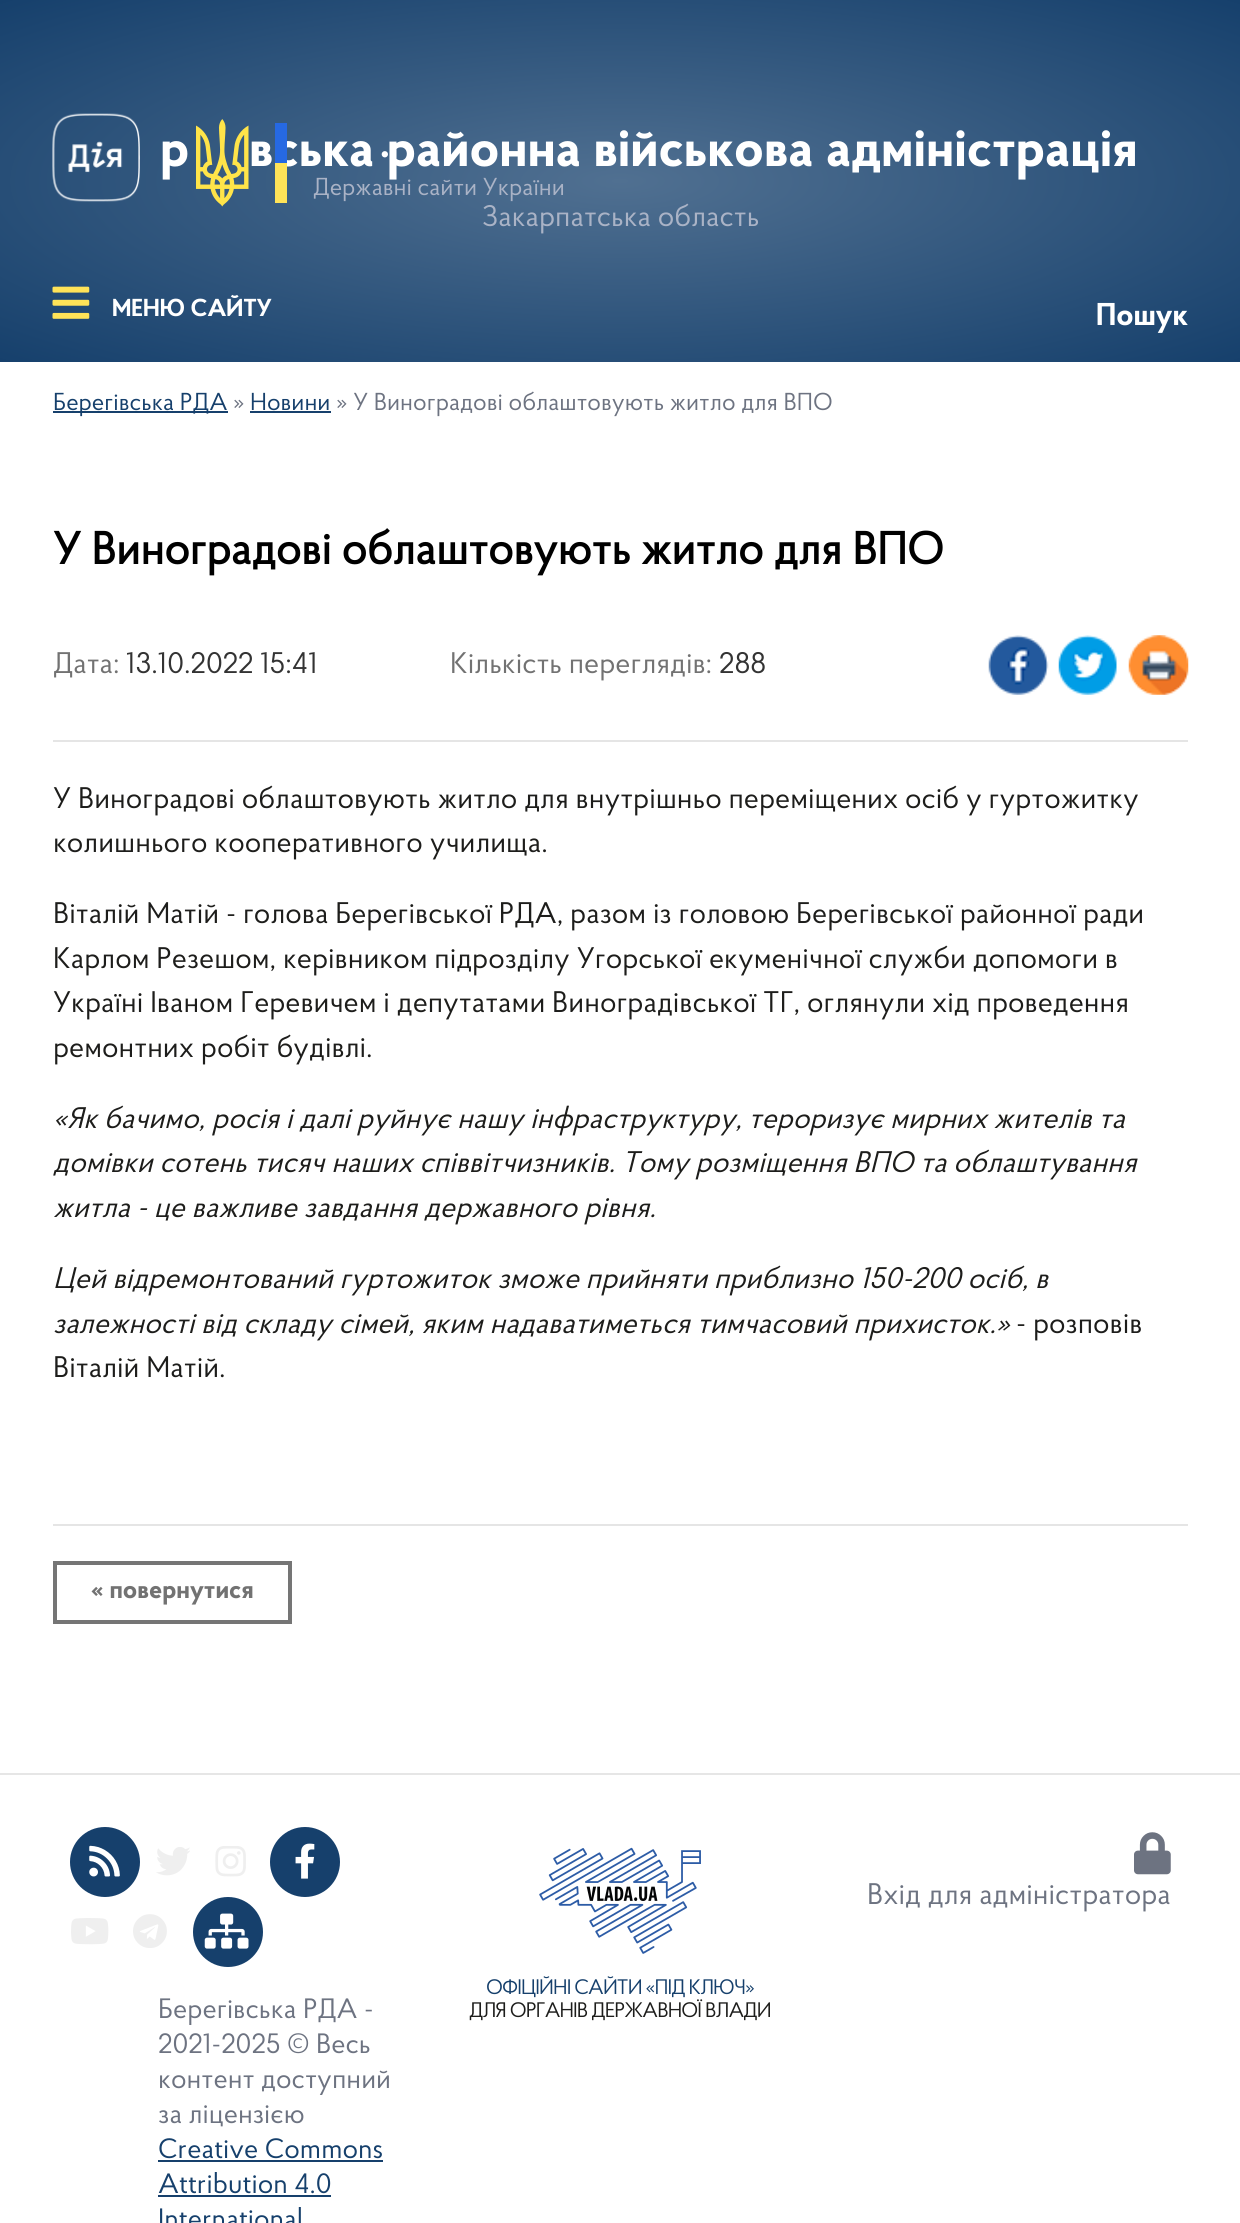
#include <cairo/cairo.h>
#include <math.h>
#include <stddef.h>

typedef struct { double x, y; const char *s; } line_t;
static cairo_t *cr;

static void rgb(unsigned color)
{
	cairo_set_source_rgb(cr, (color >> 16) / 255.0, (color >> 8 & 255) / 255.0, (color & 255) / 255.0);
}

static void tracked(double x, double y, const char *s, double letter, double word)
{
	cairo_move_to(cr, x, y);
	while (*s) {
		char ch[5] = {0};
		int n = 0;
		do ch[n++] = *s++; while ((*s & 0xC0) == 0x80);
		cairo_show_text(cr, ch);
		cairo_rel_move_to(cr, letter + word * (*ch == ' '), 0);
	}
}

static void image(const char *path, double x, double y, double w, double h)
{
	cairo_surface_t *image = cairo_image_surface_create_from_png(path);
	cairo_save(cr);
	cairo_set_source_surface(cr, image, x, y);
	cairo_rectangle(cr, x, y, w, h);
	cairo_fill(cr);
	cairo_restore(cr);
	cairo_surface_destroy(image);
}

int main(void) {
	cairo_surface_t *surface = cairo_image_surface_create(CAIRO_FORMAT_RGB24, 1240, 2223);
	cr = cairo_create(surface);
	cairo_font_options_t *options = cairo_font_options_create();
	cairo_font_options_set_hint_metrics(options, CAIRO_HINT_METRICS_OFF);
	cairo_font_options_set_hint_style(options, CAIRO_HINT_STYLE_NONE);
	cairo_set_font_options(cr, options);
	cairo_set_miter_limit(cr, 4);
	cairo_pattern_t *gradient;
	rgb(0xffffff);
	cairo_paint(cr);
	gradient = cairo_pattern_create_radial(0, 0, 0, 0, 0, 1);
	cairo_pattern_set_matrix(gradient, &(cairo_matrix_t){1.0 / 877, 0, 0, 1.0 / 256, -1.0 * 620 / 877, -1.0 * 181 / 256});
	cairo_pattern_add_color_stop_rgba(gradient, 0, 0.314, 0.439, 0.569, 1);
	cairo_pattern_add_color_stop_rgba(gradient, 1, 0.086, 0.251, 0.424, 1);
	cairo_set_source(cr, gradient);
	cairo_pattern_destroy(gradient);
	cairo_rectangle(cr, 0, 0, 1240, 362);
	cairo_fill(cr);
	image("img/1.png", 52, 113, 88, 89);
	image("img/2.png", 196, 119, 53, 88);
	image("img/3.png", 52, 286, 38, 33);
	rgb(0x16406c);
	cairo_rectangle(cr, 53, 411, 175, 2);
	cairo_fill(cr);
	cairo_rectangle(cr, 250, 411, 81, 2);
	cairo_fill(cr);
	image("img/4.png", 988, 635, 61, 60);
	image("img/5.png", 1058, 635, 59, 60);
	image("img/6.png", 1128, 635, 61, 60);
	rgb(0xe5e5e5);
	cairo_rectangle(cr, 53, 740, 1135, 2);
	cairo_fill(cr);
	cairo_rectangle(cr, 53, 1524, 1135, 2);
	cairo_fill(cr);
	cairo_rectangle(cr, 55, 1563, 235, 59);
	rgb(0x757575);
	cairo_set_line_width(cr, 4);
	cairo_stroke(cr);
	rgb(0xe6e6e6);
	cairo_rectangle(cr, 0, 1773, 1240, 2);
	cairo_fill(cr);
	image("img/7.png", 1134, 1832, 37, 43);
	rgb(0x16406c);
	cairo_arc(cr, 105, 1862, 35, 0, 2 * M_PI);
	cairo_fill(cr);
	image("img/8.png", 89, 1845, 31, 32);
	image("img/9.png", 156, 1847, 34, 29);
	image("img/10.png", 215, 1846, 31, 31);
	cairo_arc(cr, 305, 1862, 35, 0, 2 * M_PI);
	cairo_fill(cr);
	image("img/11.png", 295, 1843, 20, 36);
	image("img/12.png", 71, 1918, 38, 27);
	image("img/13.png", 133, 1914, 34, 34);
	cairo_arc(cr, 228, 1932, 35, 0, 2 * M_PI);
	cairo_fill(cr);
	image("img/14.png", 204, 1913, 45, 36);
	cairo_rectangle(cr, 158, 2160, 225, 2);
	cairo_fill(cr);
	cairo_rectangle(cr, 158, 2195, 173, 2);
	cairo_fill(cr);
	image("img/15.png", 539, 1847, 162, 107);
	cairo_select_font_face(cr, "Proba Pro", CAIRO_FONT_SLANT_NORMAL, CAIRO_FONT_WEIGHT_BOLD);
	cairo_set_font_size(cr, 54.25);
	rgb(0xffffff);
	cairo_move_to(cr, 160, 166);
	cairo_show_text(cr, "р");
	cairo_move_to(cr, 249, 166);
	cairo_show_text(cr, "вська районна військова адміністрація");
	cairo_select_font_face(cr, "Proba Pro", CAIRO_FONT_SLANT_NORMAL, CAIRO_FONT_WEIGHT_NORMAL);
	cairo_set_font_size(cr, 29.75);
	rgb(0xaab3c6);
	cairo_move_to(cr, 482, 226);
	cairo_show_text(cr, "Закарпатська область");
	rgb(0x2669e3);
	cairo_rectangle(cr, 275, 123, 12, 40);
	cairo_fill(cr);
	rgb(0xffe358);
	cairo_rectangle(cr, 275, 163, 12, 40);
	cairo_fill(cr);
	cairo_select_font_face(cr, "Proba Pro", CAIRO_FONT_SLANT_NORMAL, CAIRO_FONT_WEIGHT_BOLD);
	cairo_set_font_size(cr, 42);
	rgb(0xffffff);
	cairo_move_to(cr, 380, 157);
	cairo_show_text(cr, ".");
	cairo_select_font_face(cr, "Proba Pro", CAIRO_FONT_SLANT_NORMAL, CAIRO_FONT_WEIGHT_NORMAL);
	cairo_set_font_size(cr, 24.5);
	rgb(0xaab3c6);
	cairo_move_to(cr, 313, 195);
	cairo_show_text(cr, "Державні сайти України");
	cairo_select_font_face(cr, "Proba Pro", CAIRO_FONT_SLANT_NORMAL, CAIRO_FONT_WEIGHT_BOLD);
	rgb(0xffffff);
	cairo_move_to(cr, 112, 316);
	cairo_show_text(cr, "МЕНЮ САЙТУ");
	cairo_set_font_size(cr, 31.5);
	cairo_move_to(cr, 1096, 325);
	cairo_show_text(cr, "Пошук");
	cairo_select_font_face(cr, "Proba Pro", CAIRO_FONT_SLANT_NORMAL, CAIRO_FONT_WEIGHT_NORMAL);
	cairo_set_font_size(cr, 24.5);
	rgb(0x16406c);
	cairo_move_to(cr, 53, 410);
	cairo_show_text(cr, "Берегівська РДА");
	rgb(0x6d7381);
	cairo_move_to(cr, 233, 410);
	cairo_show_text(cr, "»");
	rgb(0x16406c);
	cairo_move_to(cr, 250, 410);
	cairo_show_text(cr, "Новини");
	rgb(0x6d7381);
	cairo_move_to(cr, 336, 410);
	cairo_show_text(cr, "» У Виноградові облаштовують житло для ВПО");
	cairo_select_font_face(cr, "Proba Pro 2", CAIRO_FONT_SLANT_NORMAL, CAIRO_FONT_WEIGHT_BOLD);
	cairo_set_font_size(cr, 45.5);
	rgb(0x000000);
	cairo_move_to(cr, 53, 564);
	cairo_show_text(cr, "У Виноградові облаштовують житло для ВПО");
	cairo_select_font_face(cr, "Proba Pro", CAIRO_FONT_SLANT_NORMAL, CAIRO_FONT_WEIGHT_NORMAL);
	cairo_set_font_size(cr, 29.75);
	rgb(0x727272);
	cairo_move_to(cr, 53, 673);
	cairo_show_text(cr, "Дата:");
	rgb(0x333333);
	cairo_move_to(cr, 126, 673);
	cairo_show_text(cr, "13.10.2022 15:41");
	rgb(0x727272);
	cairo_move_to(cr, 450, 673);
	cairo_show_text(cr, "Кількість переглядів:");
	rgb(0x333333);
	cairo_move_to(cr, 719, 673);
	cairo_show_text(cr, "288");
	rgb(0x1d1d1b);
	{
		static const line_t items[] = {
			{53, 808, "У Виноградові облаштовують житло для внутрішньо переміщених осіб у гуртожитку"},
			{53, 852, "колишнього кооперативного училища."},
			{53, 923, "Віталій Матій - голова Берегівської РДА, разом із головою Берегівської районної ради"},
			{53, 968, "Карлом Резешом, керівником підрозділу Угорської екуменічної служби допомоги в"},
			{53, 1012, "Україні Іваном Геревичем і депутатами Виноградівської ТГ, оглянули хід проведення"},
			{53, 1057, "ремонтних робіт будівлі."},
		};
		for (size_t i = 0; i < sizeof items / sizeof *items; i++) {
			cairo_move_to(cr, items[i].x, items[i].y);
			cairo_show_text(cr, items[i].s);
		}
	}
	cairo_select_font_face(cr, "Proba Pro", CAIRO_FONT_SLANT_ITALIC, CAIRO_FONT_WEIGHT_NORMAL);
	{
		static const line_t items[] = {
			{53, 1128, "«Як бачимо, росія і далі руйнує нашу інфраструктуру, тероризує мирних жителів та"},
			{53, 1172, "домівки сотень тисяч наших співвітчизників. Тому розміщення ВПО та облаштування"},
			{53, 1217, "житла - це важливе завдання державного рівня."},
			{53, 1288, "Цей відремонтований гуртожиток зможе прийняти приблизно 150-200 осіб, в"},
			{53, 1333, "залежності від складу сімей, яким надаватиметься тимчасовий прихисток.»"},
		};
		for (size_t i = 0; i < sizeof items / sizeof *items; i++) {
			cairo_move_to(cr, items[i].x, items[i].y);
			cairo_show_text(cr, items[i].s);
		}
	}
	cairo_select_font_face(cr, "Proba Pro", CAIRO_FONT_SLANT_NORMAL, CAIRO_FONT_WEIGHT_NORMAL);
	cairo_move_to(cr, 1016, 1333);
	cairo_show_text(cr, "- розповів");
	cairo_move_to(cr, 53, 1377);
	cairo_show_text(cr, "Віталій Матій.");
	cairo_select_font_face(cr, "Proba Pro", CAIRO_FONT_SLANT_NORMAL, CAIRO_FONT_WEIGHT_BOLD);
	cairo_set_font_size(cr, 26.25);
	rgb(0x727272);
	cairo_move_to(cr, 91, 1598);
	cairo_show_text(cr, "« повернутися");
	cairo_select_font_face(cr, "Proba Pro", CAIRO_FONT_SLANT_NORMAL, CAIRO_FONT_WEIGHT_NORMAL);
	cairo_set_font_size(cr, 29.75);
	rgb(0x6d7381);
	cairo_move_to(cr, 867, 1904);
	cairo_show_text(cr, "Вхід для адміністратора");
	cairo_set_font_size(cr, 28);
	{
		static const line_t items[] = {
			{158, 2018, "Берегівська РДА -"},
			{158, 2053, "2021-2025 © Весь"},
			{158, 2088, "контент доступний"},
			{158, 2123, "за ліцензією"},
		};
		for (size_t i = 0; i < sizeof items / sizeof *items; i++) {
			cairo_move_to(cr, items[i].x, items[i].y);
			cairo_show_text(cr, items[i].s);
		}
	}
	rgb(0x16406c);
	{
		static const line_t items[] = {
			{158, 2158, "Creative Commons"},
			{158, 2193, "Attribution 4.0"},
			{158, 2228, "International"},
		};
		for (size_t i = 0; i < sizeof items / sizeof *items; i++) {
			cairo_move_to(cr, items[i].x, items[i].y);
			cairo_show_text(cr, items[i].s);
		}
	}
	cairo_set_font_size(cr, 21);
	tracked(486, 1994, "ОФІЦІЙНІ САЙТИ «ПІД КЛЮЧ»", -0.9, 0);
	rgb(0x1d1d1b);
	tracked(469, 2017, "ДЛЯ ОРГАНІВ ДЕРЖАВНОЇ ВЛАДИ", -0.9, 0);
	cairo_surface_write_to_png(surface, "page.png");
	cairo_font_options_destroy(options);
	cairo_destroy(cr);
	cairo_surface_destroy(surface);
	return 0;
}
